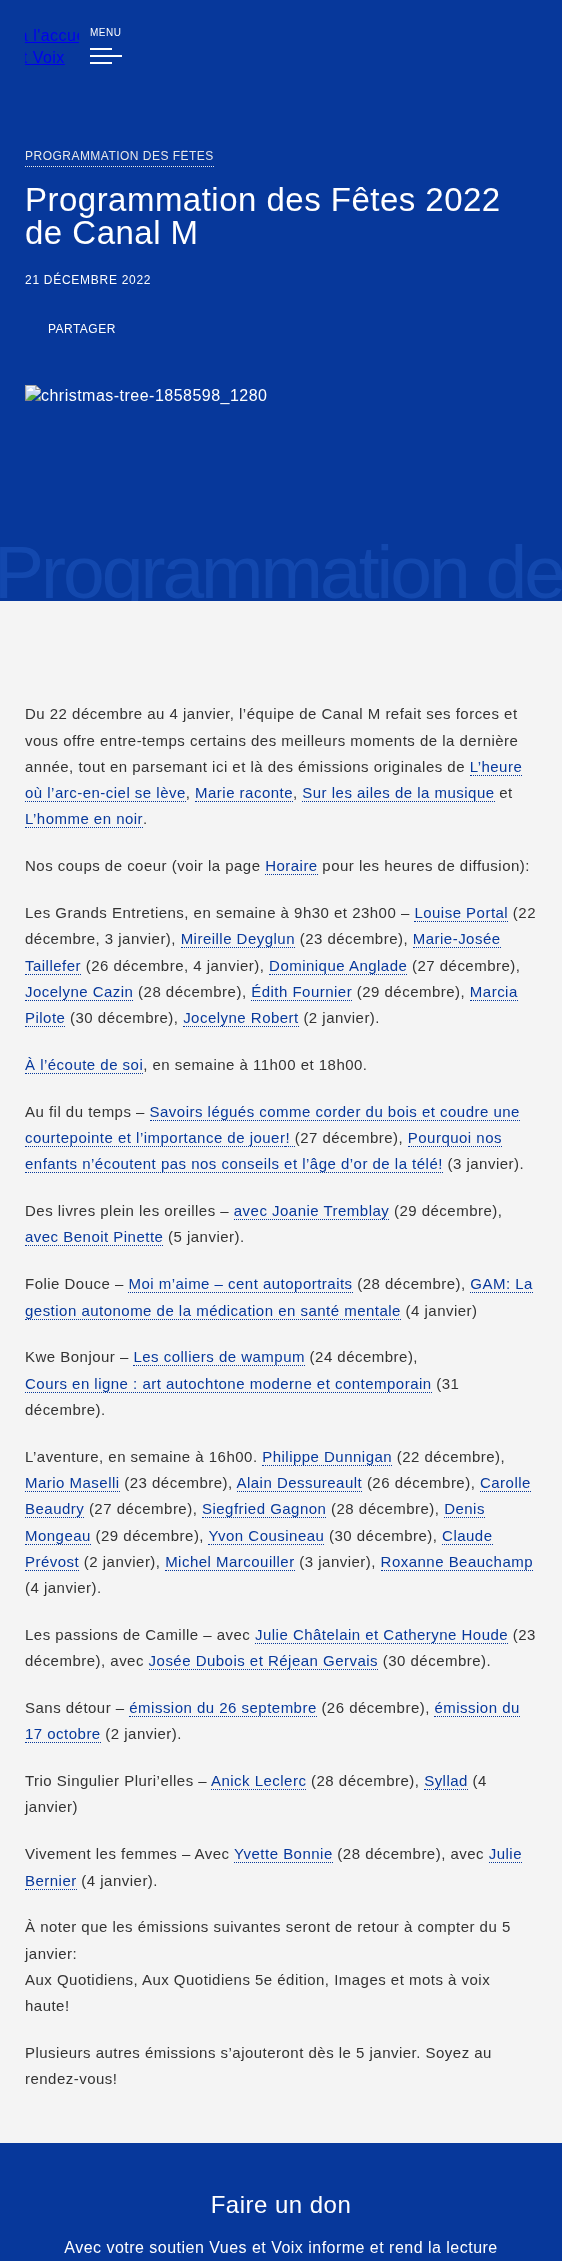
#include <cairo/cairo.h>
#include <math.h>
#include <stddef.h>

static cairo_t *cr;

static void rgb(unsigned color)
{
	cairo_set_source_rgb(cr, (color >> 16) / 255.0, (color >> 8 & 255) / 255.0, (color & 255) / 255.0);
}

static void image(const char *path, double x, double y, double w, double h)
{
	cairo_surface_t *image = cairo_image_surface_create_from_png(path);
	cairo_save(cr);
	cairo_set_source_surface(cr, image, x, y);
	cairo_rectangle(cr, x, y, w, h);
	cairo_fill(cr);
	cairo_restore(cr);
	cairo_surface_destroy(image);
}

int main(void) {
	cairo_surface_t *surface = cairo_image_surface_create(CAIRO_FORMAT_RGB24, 562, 2261);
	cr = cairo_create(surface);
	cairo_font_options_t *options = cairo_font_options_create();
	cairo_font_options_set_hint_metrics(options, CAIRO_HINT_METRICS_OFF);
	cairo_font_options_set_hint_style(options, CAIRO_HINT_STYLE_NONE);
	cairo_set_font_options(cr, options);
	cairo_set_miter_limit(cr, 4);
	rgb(0xffffff);
	cairo_paint(cr);
	image("img/1.png", 0, 0, 562, 2261);
	cairo_surface_write_to_png(surface, "page.png");
	cairo_font_options_destroy(options);
	cairo_destroy(cr);
	cairo_surface_destroy(surface);
	return 0;
}
